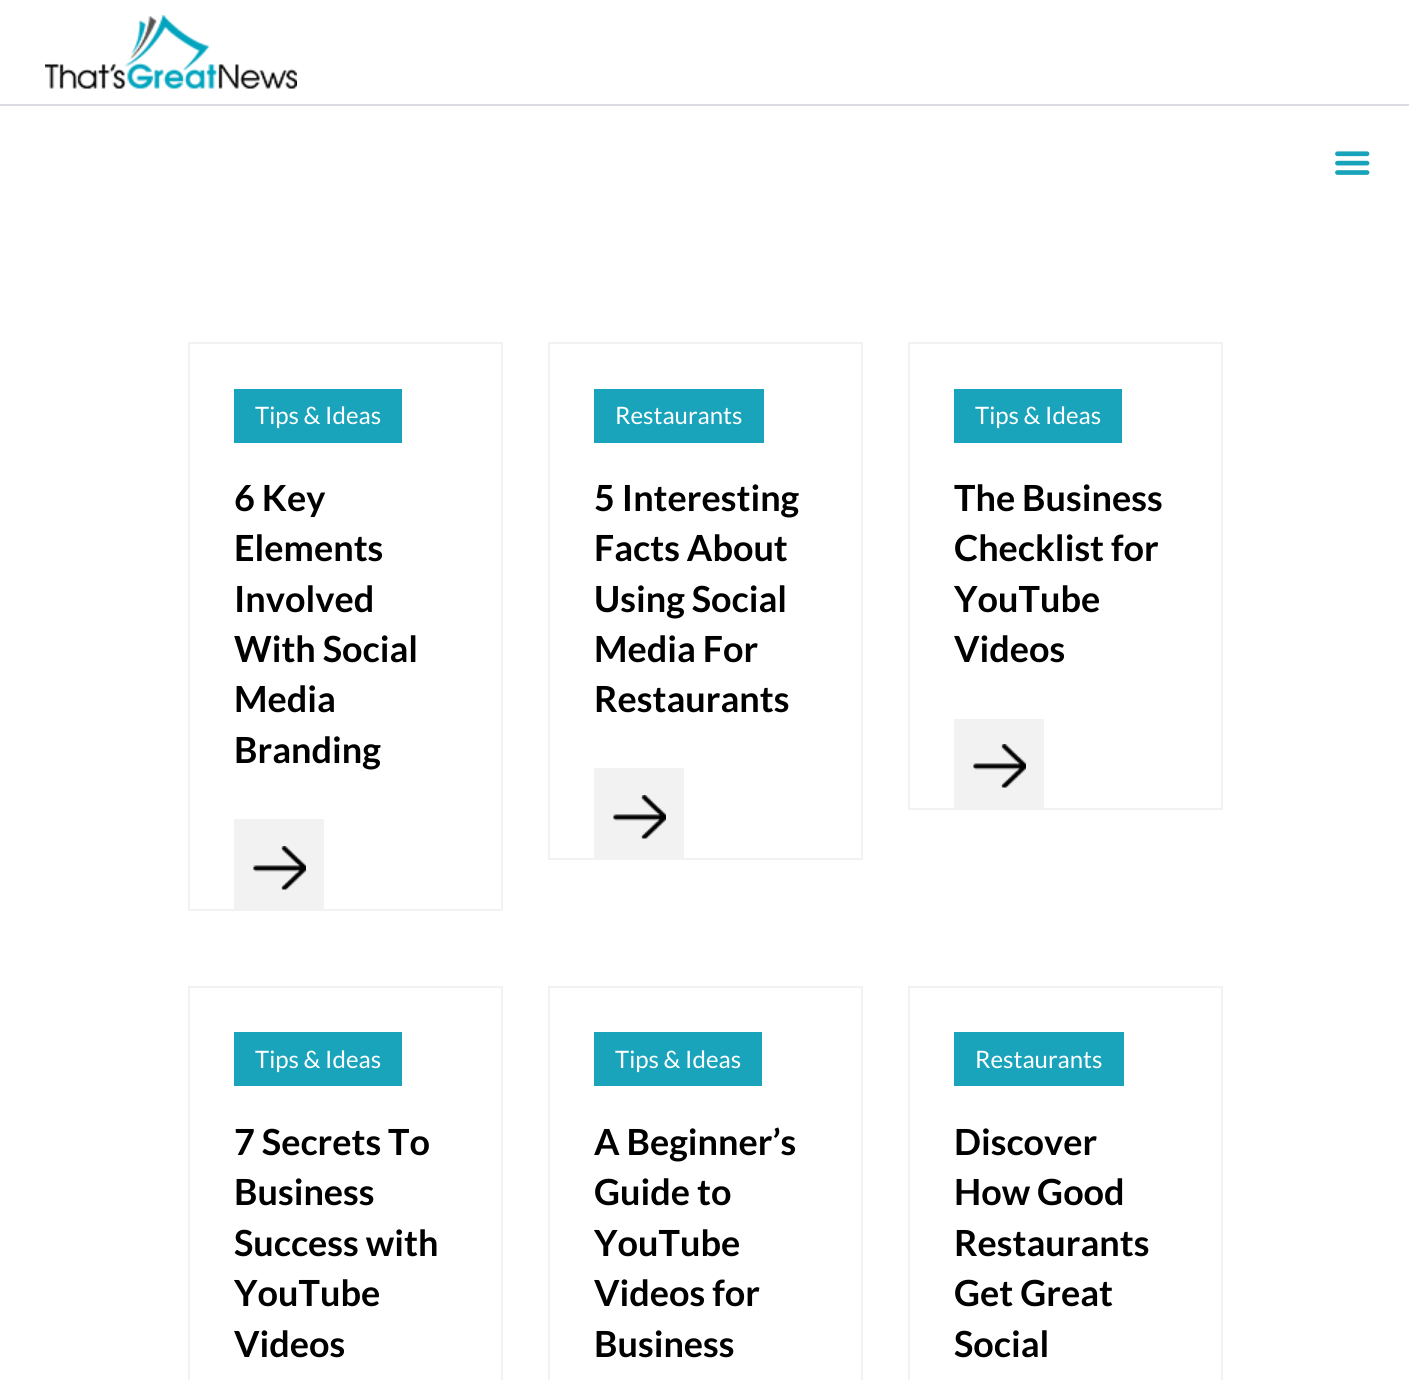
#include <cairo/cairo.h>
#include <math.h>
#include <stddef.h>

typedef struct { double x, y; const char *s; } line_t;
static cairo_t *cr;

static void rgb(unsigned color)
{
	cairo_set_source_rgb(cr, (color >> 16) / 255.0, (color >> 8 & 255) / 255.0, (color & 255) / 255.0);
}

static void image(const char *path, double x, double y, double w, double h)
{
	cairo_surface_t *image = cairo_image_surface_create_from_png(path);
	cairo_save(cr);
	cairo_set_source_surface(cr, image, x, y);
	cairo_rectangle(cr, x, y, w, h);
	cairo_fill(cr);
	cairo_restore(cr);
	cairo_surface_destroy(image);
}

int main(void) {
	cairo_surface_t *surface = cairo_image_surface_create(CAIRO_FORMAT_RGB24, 1409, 1380);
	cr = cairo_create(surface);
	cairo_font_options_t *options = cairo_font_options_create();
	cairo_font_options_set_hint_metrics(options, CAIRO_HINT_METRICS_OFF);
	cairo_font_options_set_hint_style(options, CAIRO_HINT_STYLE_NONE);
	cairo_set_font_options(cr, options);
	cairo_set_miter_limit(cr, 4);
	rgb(0xffffff);
	cairo_paint(cr);
	rgb(0xdadce1);
	cairo_rectangle(cr, 0, 104, 1409, 2);
	cairo_fill(cr);
	image("img/1.png", 45, 15, 252, 74);
	image("img/2.png", 1335, 151, 35, 24);
	cairo_rectangle(cr, 189, 343, 313, 567);
	rgb(0xf3f2f2);
	cairo_stroke(cr);
	rgb(0x1aa4bc);
	cairo_rectangle(cr, 234, 389, 168, 54);
	cairo_fill(cr);
	rgb(0xf3f2f2);
	cairo_rectangle(cr, 234, 819, 90, 90);
	cairo_fill(cr);
	image("img/3.png", 253, 846, 53, 44);
	cairo_rectangle(cr, 549, 343, 313, 516);
	cairo_stroke(cr);
	rgb(0x1aa4bc);
	cairo_rectangle(cr, 594, 389, 170, 54);
	cairo_fill(cr);
	rgb(0xf3f2f2);
	cairo_rectangle(cr, 594, 768, 90, 90);
	cairo_fill(cr);
	image("img/4.png", 613, 795, 53, 44);
	cairo_rectangle(cr, 909, 343, 313, 466);
	cairo_stroke(cr);
	rgb(0x1aa4bc);
	cairo_rectangle(cr, 954, 389, 168, 54);
	cairo_fill(cr);
	rgb(0xf3f2f2);
	cairo_rectangle(cr, 954, 719, 90, 89);
	cairo_fill(cr);
	image("img/3.png", 973, 744, 53, 44);
	cairo_rectangle(cr, 189, 987, 313, 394);
	cairo_stroke(cr);
	rgb(0x1aa4bc);
	cairo_rectangle(cr, 234, 1032, 168, 54);
	cairo_fill(cr);
	cairo_rectangle(cr, 549, 987, 313, 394);
	rgb(0xf3f2f2);
	cairo_stroke(cr);
	rgb(0x1aa4bc);
	cairo_rectangle(cr, 594, 1032, 168, 54);
	cairo_fill(cr);
	cairo_rectangle(cr, 909, 987, 313, 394);
	rgb(0xf3f2f2);
	cairo_stroke(cr);
	rgb(0x1aa4bc);
	cairo_rectangle(cr, 954, 1032, 170, 54);
	cairo_fill(cr);
	cairo_select_font_face(cr, "Lato", CAIRO_FONT_SLANT_NORMAL, CAIRO_FONT_WEIGHT_NORMAL);
	cairo_set_font_size(cr, 24);
	rgb(0xffffff);
	cairo_move_to(cr, 255, 424);
	cairo_show_text(cr, "Tips & Ideas");
	cairo_select_font_face(cr, "Lato", CAIRO_FONT_SLANT_NORMAL, CAIRO_FONT_WEIGHT_BOLD);
	cairo_set_font_size(cr, 36);
	rgb(0x000000);
	{
		static const line_t items[] = {
			{234, 511, "6 Key"},
			{234, 561, "Elements"},
			{234, 612, "Involved"},
			{234, 662, "With Social"},
			{234, 712, "Media"},
			{234, 763, "Branding"},
		};
		for (size_t i = 0; i < sizeof items / sizeof *items; i++) {
			cairo_move_to(cr, items[i].x, items[i].y);
			cairo_show_text(cr, items[i].s);
		}
	}
	cairo_select_font_face(cr, "Lato", CAIRO_FONT_SLANT_NORMAL, CAIRO_FONT_WEIGHT_NORMAL);
	cairo_set_font_size(cr, 24);
	rgb(0xffffff);
	cairo_move_to(cr, 615, 424);
	cairo_show_text(cr, "Restaurants");
	cairo_select_font_face(cr, "Lato", CAIRO_FONT_SLANT_NORMAL, CAIRO_FONT_WEIGHT_BOLD);
	cairo_set_font_size(cr, 36);
	rgb(0x000000);
	{
		static const line_t items[] = {
			{594, 511, "5 Interesting"},
			{594, 561, "Facts About"},
			{594, 612, "Using Social"},
			{594, 662, "Media For"},
			{594, 712, "Restaurants"},
		};
		for (size_t i = 0; i < sizeof items / sizeof *items; i++) {
			cairo_move_to(cr, items[i].x, items[i].y);
			cairo_show_text(cr, items[i].s);
		}
	}
	cairo_select_font_face(cr, "Lato", CAIRO_FONT_SLANT_NORMAL, CAIRO_FONT_WEIGHT_NORMAL);
	cairo_set_font_size(cr, 24);
	rgb(0xffffff);
	cairo_move_to(cr, 975, 424);
	cairo_show_text(cr, "Tips & Ideas");
	cairo_select_font_face(cr, "Lato", CAIRO_FONT_SLANT_NORMAL, CAIRO_FONT_WEIGHT_BOLD);
	cairo_set_font_size(cr, 36);
	rgb(0x000000);
	{
		static const line_t items[] = {
			{954, 511, "The Business"},
			{954, 561, "Checklist for"},
			{954, 612, "YouTube"},
			{954, 662, "Videos"},
		};
		for (size_t i = 0; i < sizeof items / sizeof *items; i++) {
			cairo_move_to(cr, items[i].x, items[i].y);
			cairo_show_text(cr, items[i].s);
		}
	}
	cairo_select_font_face(cr, "Lato", CAIRO_FONT_SLANT_NORMAL, CAIRO_FONT_WEIGHT_NORMAL);
	cairo_set_font_size(cr, 24);
	rgb(0xffffff);
	cairo_move_to(cr, 255, 1068);
	cairo_show_text(cr, "Tips & Ideas");
	cairo_select_font_face(cr, "Lato", CAIRO_FONT_SLANT_NORMAL, CAIRO_FONT_WEIGHT_BOLD);
	cairo_set_font_size(cr, 36);
	rgb(0x000000);
	{
		static const line_t items[] = {
			{234, 1155, "7 Secrets To"},
			{234, 1205, "Business"},
			{234, 1256, "Success with"},
			{234, 1306, "YouTube"},
			{234, 1357, "Videos"},
		};
		for (size_t i = 0; i < sizeof items / sizeof *items; i++) {
			cairo_move_to(cr, items[i].x, items[i].y);
			cairo_show_text(cr, items[i].s);
		}
	}
	cairo_select_font_face(cr, "Lato", CAIRO_FONT_SLANT_NORMAL, CAIRO_FONT_WEIGHT_NORMAL);
	cairo_set_font_size(cr, 24);
	rgb(0xffffff);
	cairo_move_to(cr, 615, 1068);
	cairo_show_text(cr, "Tips & Ideas");
	cairo_select_font_face(cr, "Lato", CAIRO_FONT_SLANT_NORMAL, CAIRO_FONT_WEIGHT_BOLD);
	cairo_set_font_size(cr, 36);
	rgb(0x000000);
	{
		static const line_t items[] = {
			{594, 1155, "A Beginner’s"},
			{594, 1205, "Guide to"},
			{594, 1256, "YouTube"},
			{594, 1306, "Videos for"},
			{594, 1357, "Business"},
		};
		for (size_t i = 0; i < sizeof items / sizeof *items; i++) {
			cairo_move_to(cr, items[i].x, items[i].y);
			cairo_show_text(cr, items[i].s);
		}
	}
	cairo_select_font_face(cr, "Lato", CAIRO_FONT_SLANT_NORMAL, CAIRO_FONT_WEIGHT_NORMAL);
	cairo_set_font_size(cr, 24);
	rgb(0xffffff);
	cairo_move_to(cr, 975, 1068);
	cairo_show_text(cr, "Restaurants");
	cairo_select_font_face(cr, "Lato", CAIRO_FONT_SLANT_NORMAL, CAIRO_FONT_WEIGHT_BOLD);
	cairo_set_font_size(cr, 36);
	rgb(0x000000);
	{
		static const line_t items[] = {
			{954, 1155, "Discover"},
			{954, 1205, "How Good"},
			{954, 1256, "Restaurants"},
			{954, 1306, "Get Great"},
			{954, 1357, "Social"},
		};
		for (size_t i = 0; i < sizeof items / sizeof *items; i++) {
			cairo_move_to(cr, items[i].x, items[i].y);
			cairo_show_text(cr, items[i].s);
		}
	}
	cairo_surface_write_to_png(surface, "page.png");
	cairo_font_options_destroy(options);
	cairo_destroy(cr);
	cairo_surface_destroy(surface);
	return 0;
}
